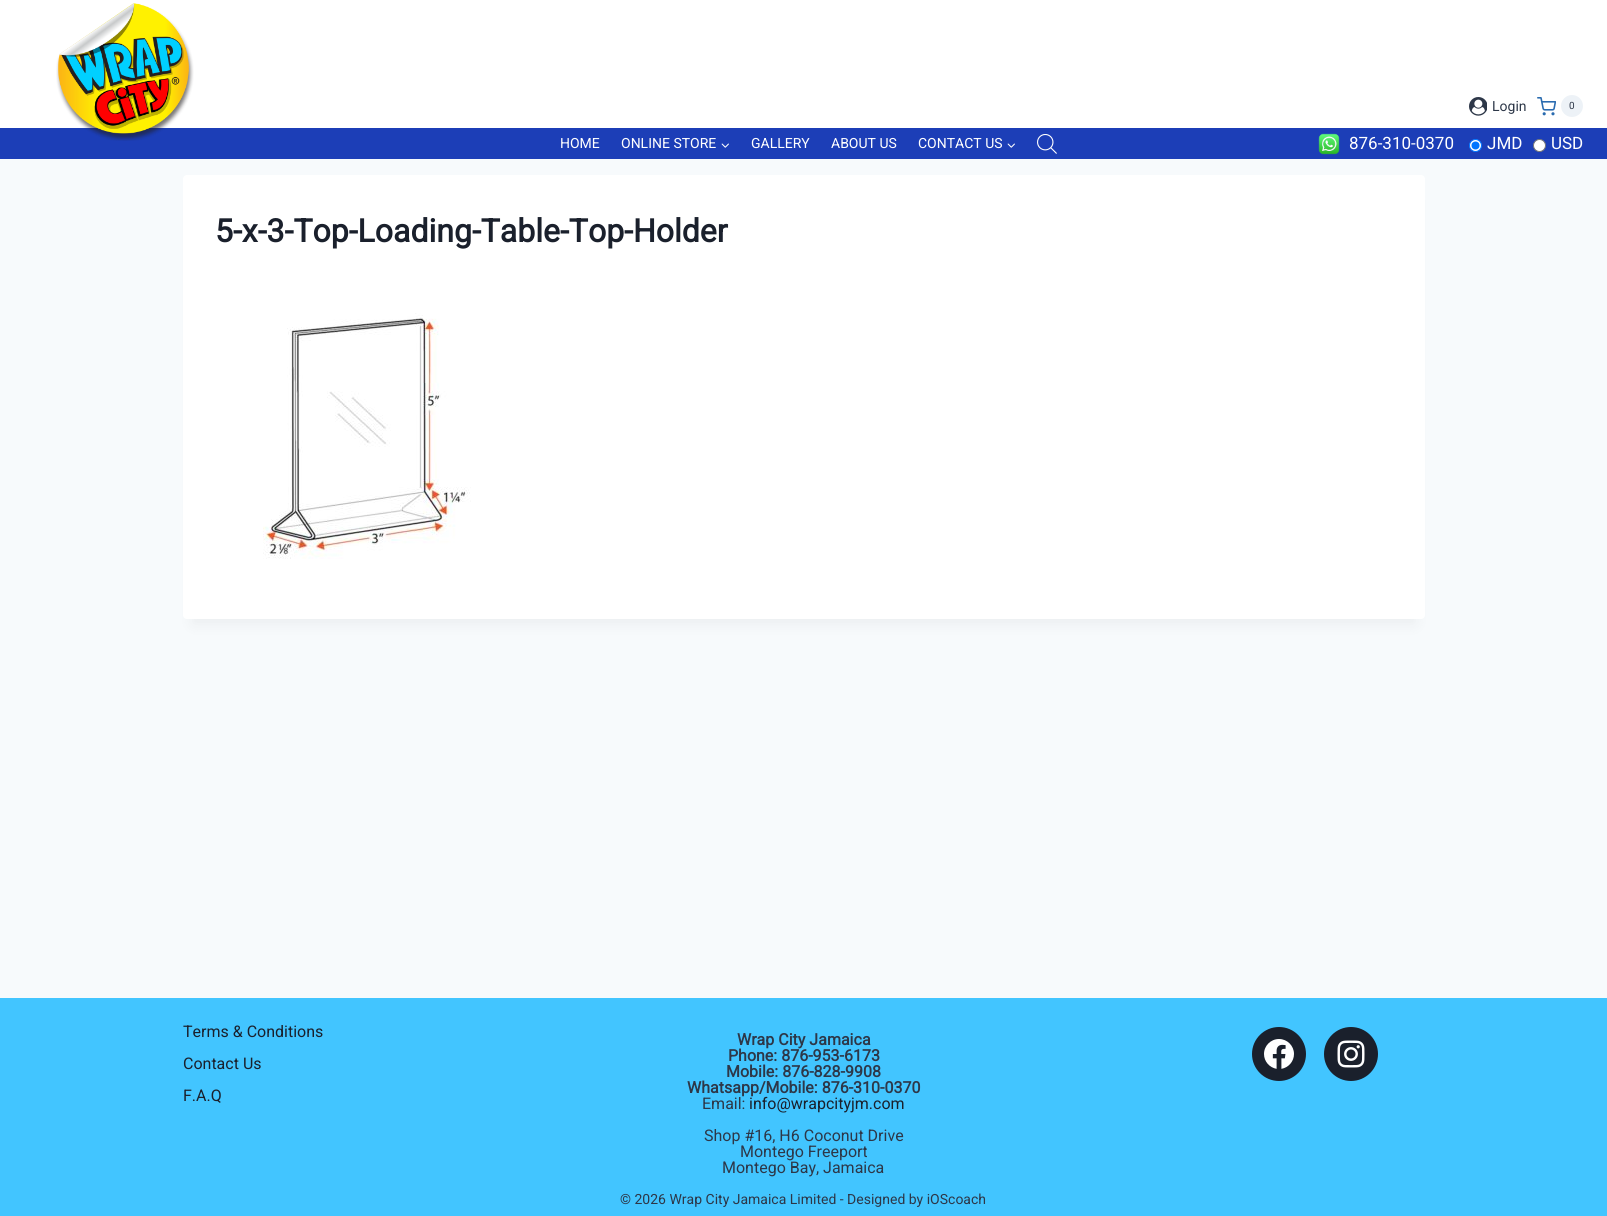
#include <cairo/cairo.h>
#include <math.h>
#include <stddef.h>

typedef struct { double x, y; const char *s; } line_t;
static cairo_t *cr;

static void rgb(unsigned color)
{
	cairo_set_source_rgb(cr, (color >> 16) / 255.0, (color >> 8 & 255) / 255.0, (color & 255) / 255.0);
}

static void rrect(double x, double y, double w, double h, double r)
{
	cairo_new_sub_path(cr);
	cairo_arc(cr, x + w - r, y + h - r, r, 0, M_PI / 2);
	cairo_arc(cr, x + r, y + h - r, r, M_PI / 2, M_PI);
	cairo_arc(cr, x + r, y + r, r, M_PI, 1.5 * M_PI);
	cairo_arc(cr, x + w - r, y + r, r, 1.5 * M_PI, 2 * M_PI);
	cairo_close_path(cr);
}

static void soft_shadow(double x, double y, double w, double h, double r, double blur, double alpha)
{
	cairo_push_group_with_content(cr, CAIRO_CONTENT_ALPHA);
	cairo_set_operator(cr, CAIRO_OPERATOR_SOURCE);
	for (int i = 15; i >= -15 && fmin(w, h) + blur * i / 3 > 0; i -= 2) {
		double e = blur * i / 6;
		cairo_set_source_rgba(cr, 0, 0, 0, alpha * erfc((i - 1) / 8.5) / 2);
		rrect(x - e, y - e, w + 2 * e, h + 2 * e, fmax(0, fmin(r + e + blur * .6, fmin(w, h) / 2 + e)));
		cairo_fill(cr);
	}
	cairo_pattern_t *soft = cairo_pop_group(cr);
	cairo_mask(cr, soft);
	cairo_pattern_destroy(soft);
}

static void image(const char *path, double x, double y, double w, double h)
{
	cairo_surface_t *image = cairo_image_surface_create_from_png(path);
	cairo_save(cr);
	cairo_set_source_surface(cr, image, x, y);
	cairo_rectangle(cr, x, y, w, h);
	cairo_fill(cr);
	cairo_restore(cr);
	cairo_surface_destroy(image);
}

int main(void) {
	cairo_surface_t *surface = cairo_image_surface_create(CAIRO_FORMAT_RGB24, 1607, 1216);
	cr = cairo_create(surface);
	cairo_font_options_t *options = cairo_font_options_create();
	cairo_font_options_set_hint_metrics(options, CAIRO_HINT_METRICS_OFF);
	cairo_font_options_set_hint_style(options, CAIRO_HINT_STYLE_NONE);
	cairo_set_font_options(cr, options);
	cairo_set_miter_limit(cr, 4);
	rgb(0xf7fafc);
	cairo_paint(cr);
	rgb(0xffffff);
	cairo_rectangle(cr, 0, 0, 1607, 128);
	cairo_fill(cr);
	rgb(0x1c3eb7);
	cairo_rectangle(cr, 0, 128, 1607, 31);
	cairo_fill(cr);
	image("img/1.png", 56, 3, 138, 138);
	image("img/2.png", 1469, 97, 18, 19);
	image("img/3.png", 1537, 97, 19, 19);
	rgb(0xedf2f7);
	cairo_arc(cr, 1572, 106, 11, 0, 2 * M_PI);
	cairo_fill(cr);
	image("img/4.png", 721, 143, 8, 5);
	image("img/4.png", 1007, 143, 8, 5);
	image("img/5.png", 1037, 134, 20, 20);
	image("img/6.png", 1318, 133, 22, 22);
	rgb(0xffffff);
	cairo_arc(cr, 1475.5, 145.5, 6, 0, 2 * M_PI);
	cairo_fill_preserve(cr);
	rgb(0x0075ff);
	cairo_set_line_width(cr, 1);
	cairo_stroke(cr);
	cairo_arc(cr, 1475.5, 145.5, 4, 0, 2 * M_PI);
	cairo_fill(cr);
	rgb(0xffffff);
	cairo_arc(cr, 1539.5, 145.5, 6, 0, 2 * M_PI);
	cairo_fill_preserve(cr);
	rgb(0x767676);
	cairo_stroke(cr);
	rgb(0x000000);
	soft_shadow(193, 200, 1222, 424, 0, 7.5, 0.05);
	rgb(0xffffff);
	rrect(183, 175, 1242, 444, 4);
	cairo_fill(cr);
	image("img/7.png", 263, 313, 208, 246);
	rgb(0x42c5ff);
	cairo_rectangle(cr, 0, 998, 1607, 218);
	cairo_fill(cr);
	rgb(0x1a202c);
	cairo_arc(cr, 1279, 1054, 27, 0, 2 * M_PI);
	cairo_fill(cr);
	image("img/8.png", 1264, 1039, 30, 30);
	cairo_arc(cr, 1351, 1054, 27, 0, 2 * M_PI);
	cairo_fill(cr);
	image("img/9.png", 1337, 1040, 28, 28);
	cairo_select_font_face(cr, "Roboto", CAIRO_FONT_SLANT_NORMAL, CAIRO_FONT_WEIGHT_NORMAL);
	cairo_set_font_size(cr, 14);
	rgb(0x2d3748);
	cairo_move_to(cr, 1492, 111);
	cairo_show_text(cr, "Login");
	cairo_set_font_size(cr, 10);
	cairo_move_to(cr, 1569, 109);
	cairo_show_text(cr, "0");
	cairo_set_font_size(cr, 14);
	rgb(0xffffff);
	{
		static const line_t items[] = {
			{560, 148, "HOME"},
			{621, 148, "ONLINE STORE"},
			{751, 148, "GALLERY"},
			{831, 148, "ABOUT US"},
			{918, 148, "CONTACT US"},
		};
		for (size_t i = 0; i < sizeof items / sizeof *items; i++) {
			cairo_move_to(cr, items[i].x, items[i].y);
			cairo_show_text(cr, items[i].s);
		}
	}
	cairo_set_font_size(cr, 17);
	{
		static const line_t items[] = {
			{1349, 149, "876-310-0370"},
			{1487, 149, "JMD"},
			{1551, 149, "USD"},
		};
		for (size_t i = 0; i < sizeof items / sizeof *items; i++) {
			cairo_move_to(cr, items[i].x, items[i].y);
			cairo_show_text(cr, items[i].s);
		}
	}
	cairo_select_font_face(cr, "Roboto", CAIRO_FONT_SLANT_NORMAL, CAIRO_FONT_WEIGHT_BOLD);
	cairo_set_font_size(cr, 32);
	rgb(0x1a202c);
	cairo_move_to(cr, 215, 242);
	cairo_show_text(cr, "5-x-3-Top-Loading-Table-Top-Holder");
	cairo_select_font_face(cr, "Roboto", CAIRO_FONT_SLANT_NORMAL, CAIRO_FONT_WEIGHT_NORMAL);
	cairo_set_font_size(cr, 16);
	{
		static const line_t items[] = {
			{183, 1037, "Terms & Conditions"},
			{183, 1069, "Contact Us"},
			{183, 1101, "F.A.Q"},
		};
		for (size_t i = 0; i < sizeof items / sizeof *items; i++) {
			cairo_move_to(cr, items[i].x, items[i].y);
			cairo_show_text(cr, items[i].s);
		}
	}
	cairo_select_font_face(cr, "Roboto", CAIRO_FONT_SLANT_NORMAL, CAIRO_FONT_WEIGHT_BOLD);
	rgb(0x2d3748);
	{
		static const line_t items[] = {
			{737, 1045, "Wrap City Jamaica"},
			{728, 1061, "Phone: 876-953-6173"},
			{726, 1077, "Mobile: 876-828-9908"},
			{687, 1093, "Whatsapp/Mobile: 876-310-0370"},
		};
		for (size_t i = 0; i < sizeof items / sizeof *items; i++) {
			cairo_move_to(cr, items[i].x, items[i].y);
			cairo_show_text(cr, items[i].s);
		}
	}
	cairo_select_font_face(cr, "Roboto", CAIRO_FONT_SLANT_NORMAL, CAIRO_FONT_WEIGHT_NORMAL);
	cairo_move_to(cr, 702, 1109);
	cairo_show_text(cr, "Email:");
	rgb(0x1a202c);
	cairo_move_to(cr, 749, 1109);
	cairo_show_text(cr, "info@wrapcityjm.com");
	rgb(0x2d3748);
	{
		static const line_t items[] = {
			{704, 1141, "Shop #16, H6 Coconut Drive"},
			{740, 1157, "Montego Freeport"},
			{722, 1173, "Montego Bay, Jamaica"},
		};
		for (size_t i = 0; i < sizeof items / sizeof *items; i++) {
			cairo_move_to(cr, items[i].x, items[i].y);
			cairo_show_text(cr, items[i].s);
		}
	}
	cairo_set_font_size(cr, 14);
	cairo_move_to(cr, 620, 1204);
	cairo_show_text(cr, "© 2026 Wrap City Jamaica Limited - Designed by iOScoach");
	cairo_surface_write_to_png(surface, "page.png");
	cairo_font_options_destroy(options);
	cairo_destroy(cr);
	cairo_surface_destroy(surface);
	return 0;
}
